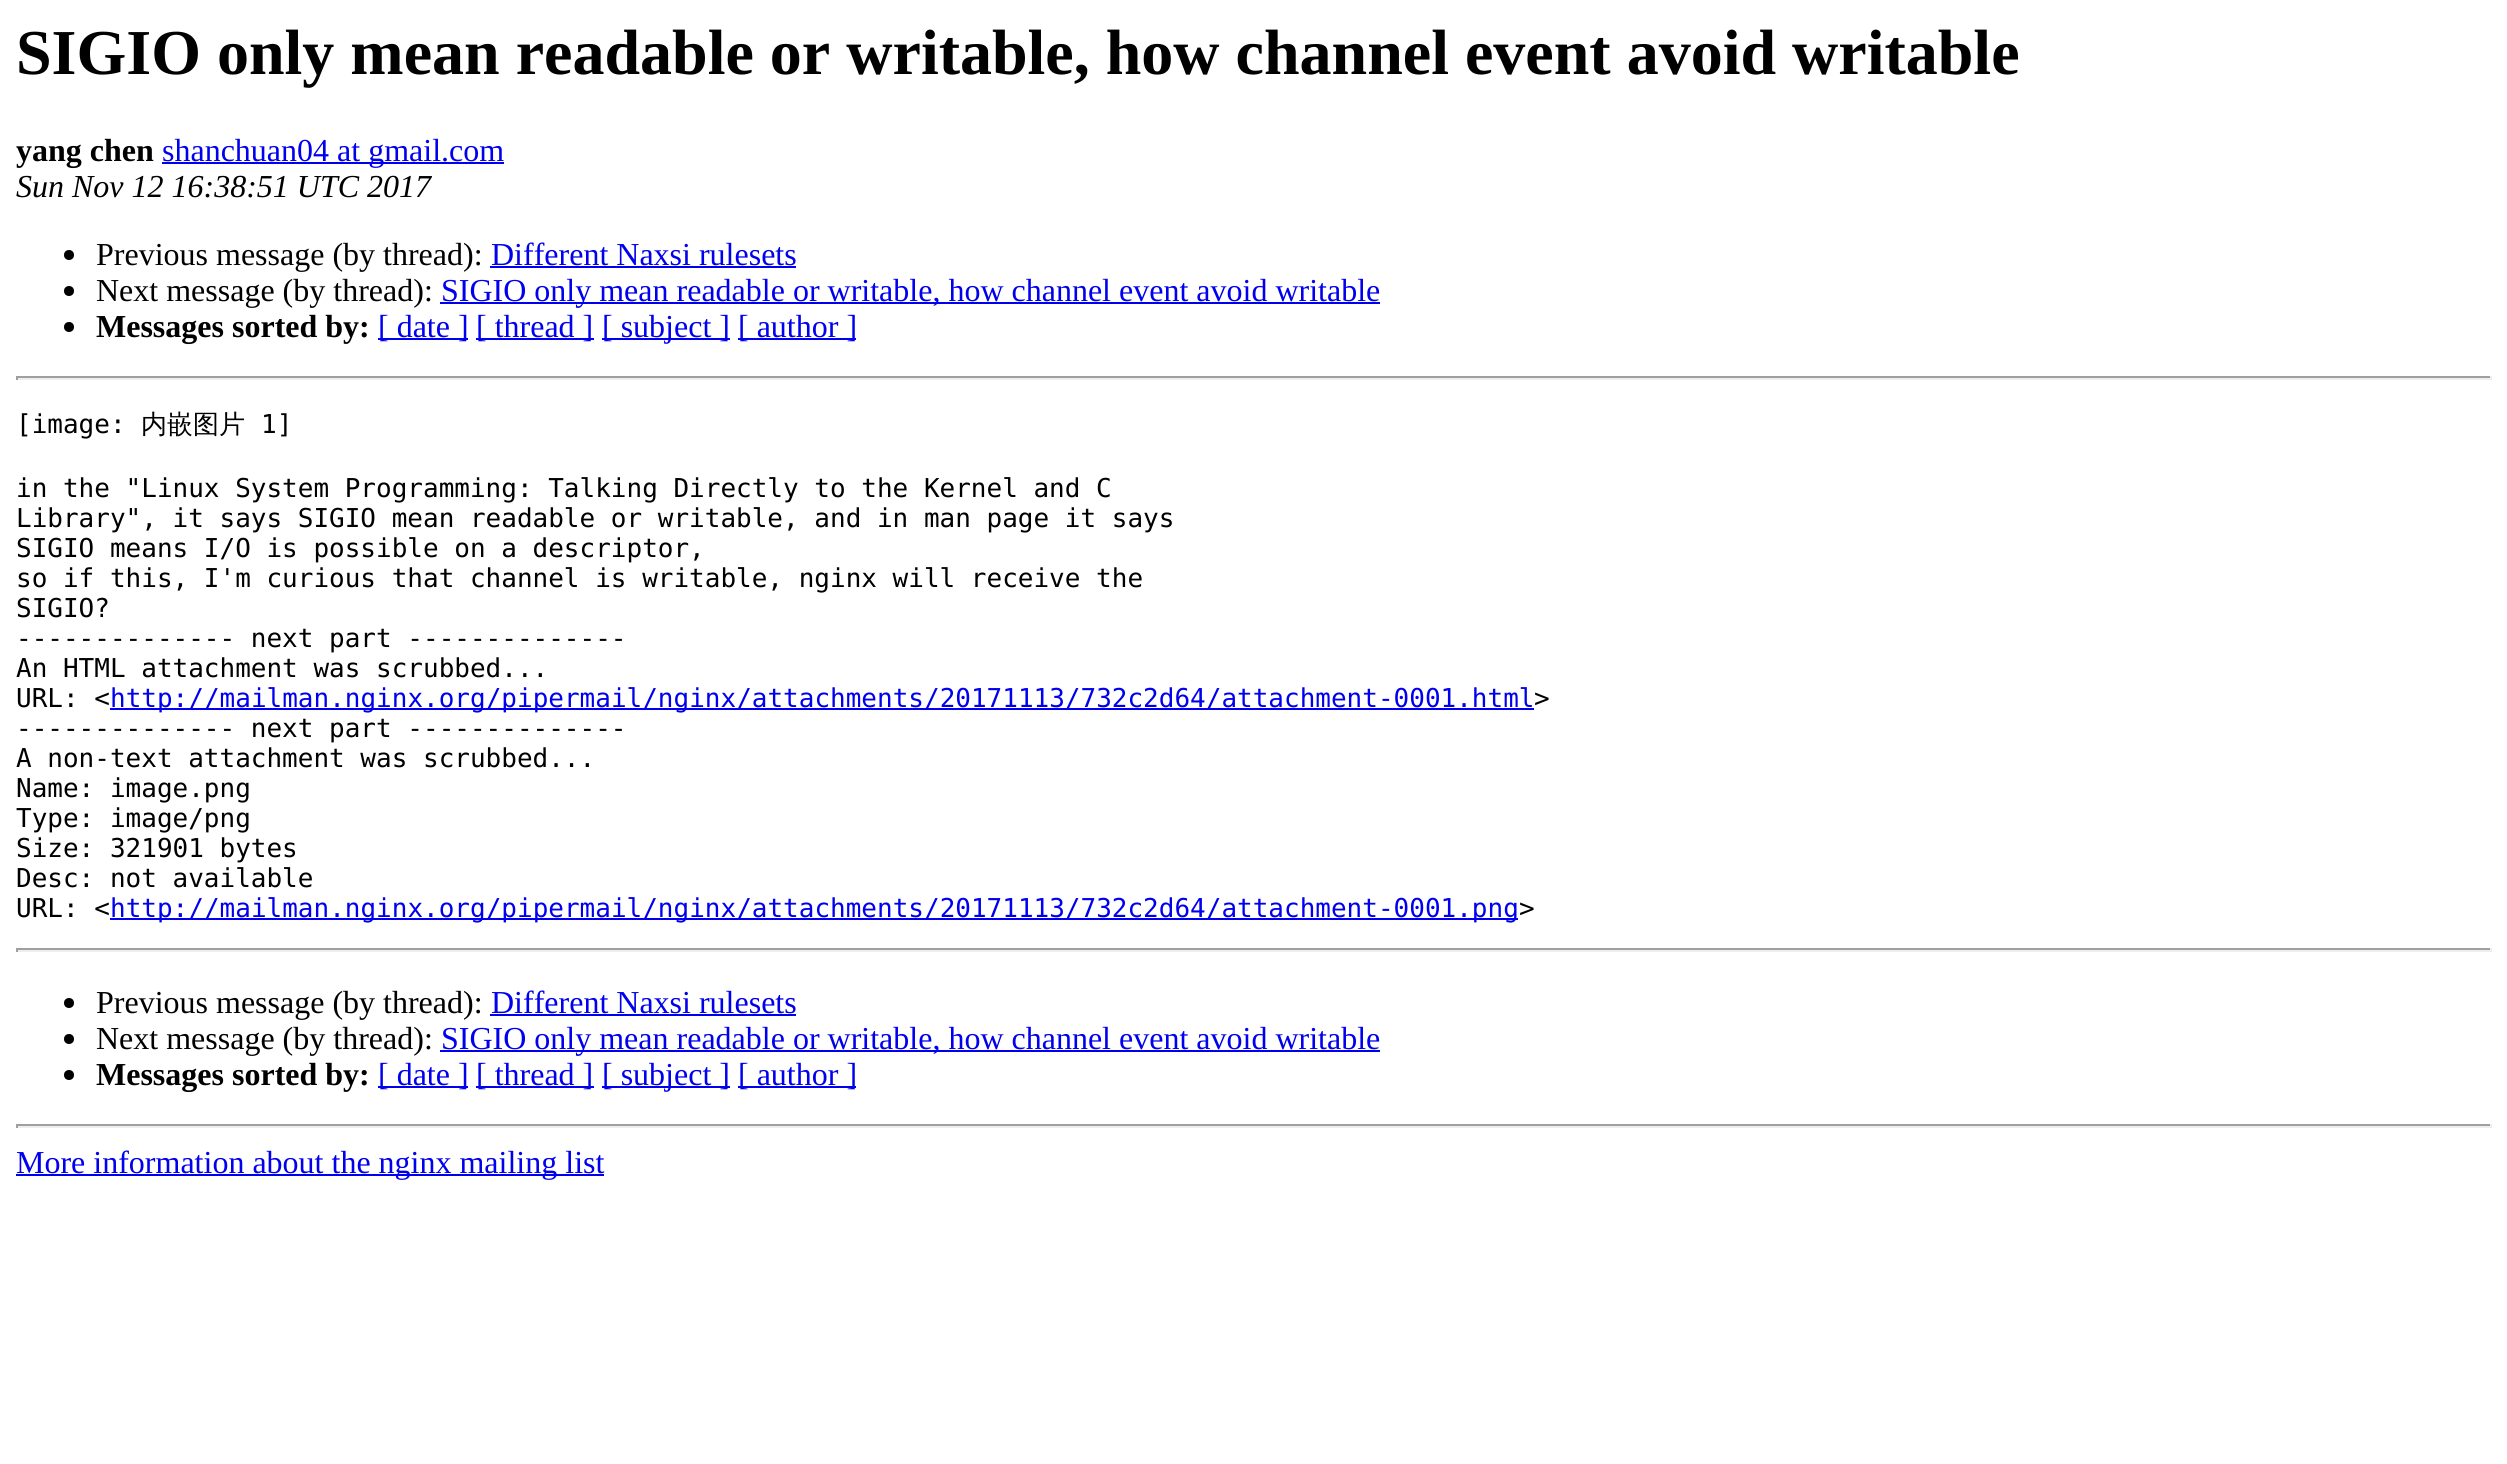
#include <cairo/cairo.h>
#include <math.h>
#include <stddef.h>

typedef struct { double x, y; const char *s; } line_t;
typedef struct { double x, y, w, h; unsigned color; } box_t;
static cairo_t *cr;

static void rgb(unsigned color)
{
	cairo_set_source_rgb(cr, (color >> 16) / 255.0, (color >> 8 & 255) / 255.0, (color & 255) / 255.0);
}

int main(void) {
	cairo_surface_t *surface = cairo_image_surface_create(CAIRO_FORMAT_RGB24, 2507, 1464);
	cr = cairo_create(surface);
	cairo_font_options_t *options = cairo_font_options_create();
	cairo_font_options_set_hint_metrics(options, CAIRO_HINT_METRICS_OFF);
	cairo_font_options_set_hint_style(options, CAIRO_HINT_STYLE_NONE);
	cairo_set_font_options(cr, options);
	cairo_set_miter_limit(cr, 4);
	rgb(0xffffff);
	cairo_paint(cr);
	rgb(0x0000ee);
	cairo_rectangle(cr, 162, 162, 342, 2);
	cairo_fill(cr);
	rgb(0x000000);
	cairo_arc(cr, 69, 255, 5, 0, 2 * M_PI);
	cairo_fill(cr);
	rgb(0x0000ee);
	cairo_rectangle(cr, 490, 266, 306, 2);
	cairo_fill(cr);
	rgb(0x000000);
	cairo_arc(cr, 69, 291, 5, 0, 2 * M_PI);
	cairo_fill(cr);
	rgb(0x0000ee);
	cairo_rectangle(cr, 440, 302, 940, 2);
	cairo_fill(cr);
	rgb(0x000000);
	cairo_arc(cr, 69, 327, 5, 0, 2 * M_PI);
	cairo_fill(cr);
	{
		static const box_t items[] = {
			{378, 338, 90, 2, 0x0000ee},
			{476, 338, 118, 2, 0x0000ee},
			{602, 338, 128, 2, 0x0000ee},
			{738, 338, 118, 2, 0x0000ee},
			{16, 376, 2476, 2, 0x9f9f9f},
			{2490, 376, 2, 4, 0xeeeeee},
			{16, 378, 2476, 2, 0xeeeeee},
			{16, 376, 2, 4, 0x9f9f9f},
			{110, 708, 1424, 2, 0x0000ee},
			{110, 918, 1408, 2, 0x0000ee},
			{16, 948, 2476, 2, 0x9f9f9f},
			{2490, 948, 2, 4, 0xeeeeee},
			{16, 950, 2476, 2, 0xeeeeee},
			{16, 948, 2, 4, 0x9f9f9f},
		};
		for (size_t i = 0; i < sizeof items / sizeof *items; i++) {
			rgb(items[i].color);
			cairo_rectangle(cr, items[i].x, items[i].y, items[i].w, items[i].h);
			cairo_fill(cr);
		}
	}
	rgb(0x000000);
	cairo_arc(cr, 69, 1003, 5, 0, 2 * M_PI);
	cairo_fill(cr);
	rgb(0x0000ee);
	cairo_rectangle(cr, 490, 1014, 306, 2);
	cairo_fill(cr);
	rgb(0x000000);
	cairo_arc(cr, 69, 1039, 5, 0, 2 * M_PI);
	cairo_fill(cr);
	rgb(0x0000ee);
	cairo_rectangle(cr, 440, 1050, 940, 2);
	cairo_fill(cr);
	rgb(0x000000);
	cairo_arc(cr, 69, 1075, 5, 0, 2 * M_PI);
	cairo_fill(cr);
	{
		static const box_t items[] = {
			{378, 1086, 90, 2, 0x0000ee},
			{476, 1086, 118, 2, 0x0000ee},
			{602, 1086, 128, 2, 0x0000ee},
			{738, 1086, 118, 2, 0x0000ee},
			{16, 1124, 2476, 2, 0x9f9f9f},
			{2490, 1124, 2, 4, 0xeeeeee},
			{16, 1126, 2476, 2, 0xeeeeee},
			{16, 1124, 2, 4, 0x9f9f9f},
			{16, 1174, 588, 2, 0x0000ee},
		};
		for (size_t i = 0; i < sizeof items / sizeof *items; i++) {
			rgb(items[i].color);
			cairo_rectangle(cr, items[i].x, items[i].y, items[i].w, items[i].h);
			cairo_fill(cr);
		}
	}
	cairo_select_font_face(cr, "Liberation Serif", CAIRO_FONT_SLANT_NORMAL, CAIRO_FONT_WEIGHT_BOLD);
	cairo_set_font_size(cr, 64);
	rgb(0x000000);
	cairo_move_to(cr, 16, 74);
	cairo_show_text(cr, "SIGIO only mean readable or writable, how channel event avoid writable");
	cairo_set_font_size(cr, 32);
	cairo_move_to(cr, 16, 161);
	cairo_show_text(cr, "yang chen");
	cairo_select_font_face(cr, "Liberation Serif", CAIRO_FONT_SLANT_NORMAL, CAIRO_FONT_WEIGHT_NORMAL);
	rgb(0x0000ee);
	cairo_move_to(cr, 162, 161);
	cairo_show_text(cr, "shanchuan04 at gmail.com");
	cairo_select_font_face(cr, "Liberation Serif", CAIRO_FONT_SLANT_ITALIC, CAIRO_FONT_WEIGHT_NORMAL);
	rgb(0x000000);
	cairo_move_to(cr, 16, 197);
	cairo_show_text(cr, "Sun Nov 12 16:38:51 UTC 2017");
	cairo_select_font_face(cr, "Liberation Serif", CAIRO_FONT_SLANT_NORMAL, CAIRO_FONT_WEIGHT_NORMAL);
	cairo_move_to(cr, 96, 265);
	cairo_show_text(cr, "Previous message (by thread):");
	rgb(0x0000ee);
	cairo_move_to(cr, 491, 265);
	cairo_show_text(cr, "Different Naxsi rulesets");
	rgb(0x000000);
	cairo_move_to(cr, 96, 301);
	cairo_show_text(cr, "Next message (by thread):");
	rgb(0x0000ee);
	cairo_move_to(cr, 441, 301);
	cairo_show_text(cr, "SIGIO only mean readable or writable, how channel event avoid writable");
	cairo_select_font_face(cr, "Liberation Serif", CAIRO_FONT_SLANT_NORMAL, CAIRO_FONT_WEIGHT_BOLD);
	rgb(0x000000);
	cairo_move_to(cr, 96, 337);
	cairo_show_text(cr, "Messages sorted by:");
	cairo_select_font_face(cr, "Liberation Serif", CAIRO_FONT_SLANT_NORMAL, CAIRO_FONT_WEIGHT_NORMAL);
	rgb(0x0000ee);
	{
		static const line_t items[] = {
			{378, 337, "[ date ]"},
			{476, 337, "[ thread ]"},
			{602, 337, "[ subject ]"},
			{738, 337, "[ author ]"},
		};
		for (size_t i = 0; i < sizeof items / sizeof *items; i++) {
			cairo_move_to(cr, items[i].x, items[i].y);
			cairo_show_text(cr, items[i].s);
		}
	}
	cairo_select_font_face(cr, "DejaVu Sans Mono", CAIRO_FONT_SLANT_NORMAL, CAIRO_FONT_WEIGHT_NORMAL);
	cairo_set_font_size(cr, 26);
	rgb(0x000000);
	cairo_move_to(cr, 16, 433);
	cairo_show_text(cr, "[image:");
	cairo_select_font_face(cr, "WenQuanYi Zen Hei Medium", CAIRO_FONT_SLANT_NORMAL, CAIRO_FONT_WEIGHT_NORMAL);
	cairo_move_to(cr, 141, 433);
	cairo_show_text(cr, "内嵌图片");
	cairo_select_font_face(cr, "DejaVu Sans Mono", CAIRO_FONT_SLANT_NORMAL, CAIRO_FONT_WEIGHT_NORMAL);
	{
		static const line_t items[] = {
			{261, 433, "1]"},
			{16, 497, "in the \"Linux System Programming: Talking Directly to the Kernel and C"},
			{16, 527, "Library\", it says SIGIO mean readable or writable, and in man page it says"},
			{16, 557, "SIGIO means I/O is possible on a descriptor,"},
			{16, 587, "so if this, I'm curious that channel is writable, nginx will receive the"},
			{16, 617, "SIGIO?"},
			{16, 647, "-------------- next part --------------"},
			{16, 677, "An HTML attachment was scrubbed..."},
			{16, 707, "URL: <"},
		};
		for (size_t i = 0; i < sizeof items / sizeof *items; i++) {
			cairo_move_to(cr, items[i].x, items[i].y);
			cairo_show_text(cr, items[i].s);
		}
	}
	rgb(0x0000ee);
	cairo_move_to(cr, 110, 707);
	cairo_show_text(cr, "http://mailman.nginx.org/pipermail/nginx/attachments/20171113/732c2d64/attachment-0001.html");
	rgb(0x000000);
	{
		static const line_t items[] = {
			{1534, 707, ">"},
			{16, 737, "-------------- next part --------------"},
			{16, 767, "A non-text attachment was scrubbed..."},
			{16, 797, "Name: image.png"},
			{16, 827, "Type: image/png"},
			{16, 857, "Size: 321901 bytes"},
			{16, 887, "Desc: not available"},
			{16, 917, "URL: <"},
		};
		for (size_t i = 0; i < sizeof items / sizeof *items; i++) {
			cairo_move_to(cr, items[i].x, items[i].y);
			cairo_show_text(cr, items[i].s);
		}
	}
	rgb(0x0000ee);
	cairo_move_to(cr, 110, 917);
	cairo_show_text(cr, "http://mailman.nginx.org/pipermail/nginx/attachments/20171113/732c2d64/attachment-0001.png");
	rgb(0x000000);
	cairo_move_to(cr, 1519, 917);
	cairo_show_text(cr, ">");
	cairo_select_font_face(cr, "Liberation Serif", CAIRO_FONT_SLANT_NORMAL, CAIRO_FONT_WEIGHT_NORMAL);
	cairo_set_font_size(cr, 32);
	cairo_move_to(cr, 96, 1013);
	cairo_show_text(cr, "Previous message (by thread):");
	rgb(0x0000ee);
	cairo_move_to(cr, 491, 1013);
	cairo_show_text(cr, "Different Naxsi rulesets");
	rgb(0x000000);
	cairo_move_to(cr, 96, 1049);
	cairo_show_text(cr, "Next message (by thread):");
	rgb(0x0000ee);
	cairo_move_to(cr, 441, 1049);
	cairo_show_text(cr, "SIGIO only mean readable or writable, how channel event avoid writable");
	cairo_select_font_face(cr, "Liberation Serif", CAIRO_FONT_SLANT_NORMAL, CAIRO_FONT_WEIGHT_BOLD);
	rgb(0x000000);
	cairo_move_to(cr, 96, 1085);
	cairo_show_text(cr, "Messages sorted by:");
	cairo_select_font_face(cr, "Liberation Serif", CAIRO_FONT_SLANT_NORMAL, CAIRO_FONT_WEIGHT_NORMAL);
	rgb(0x0000ee);
	{
		static const line_t items[] = {
			{378, 1085, "[ date ]"},
			{476, 1085, "[ thread ]"},
			{602, 1085, "[ subject ]"},
			{738, 1085, "[ author ]"},
			{16, 1173, "More information about the nginx mailing list"},
		};
		for (size_t i = 0; i < sizeof items / sizeof *items; i++) {
			cairo_move_to(cr, items[i].x, items[i].y);
			cairo_show_text(cr, items[i].s);
		}
	}
	cairo_surface_write_to_png(surface, "page.png");
	cairo_font_options_destroy(options);
	cairo_destroy(cr);
	cairo_surface_destroy(surface);
	return 0;
}
